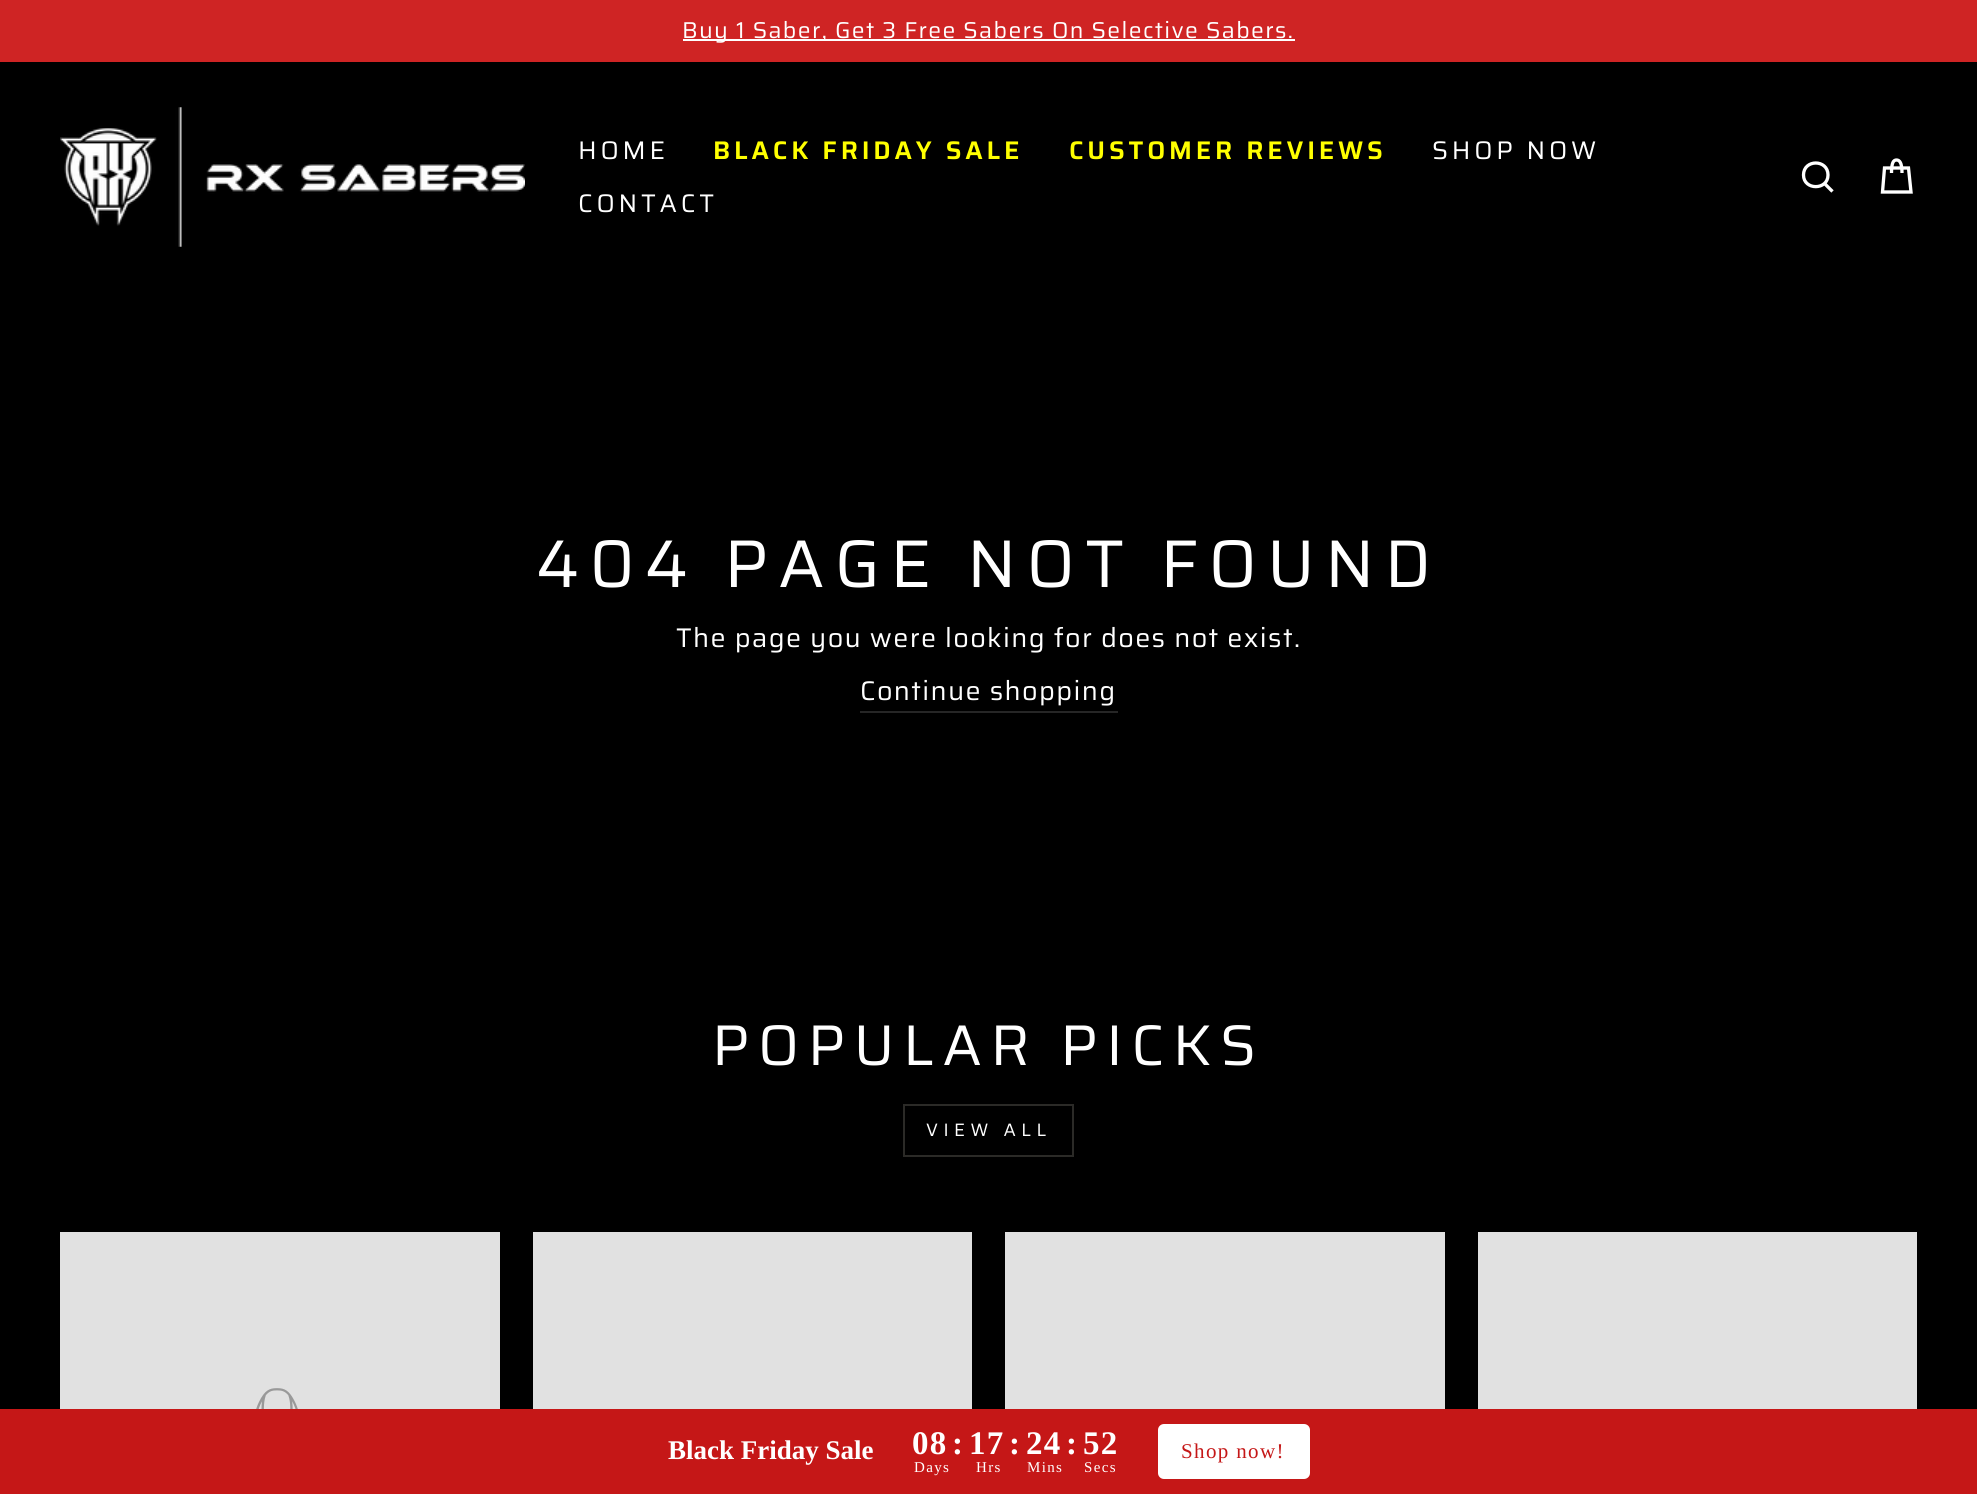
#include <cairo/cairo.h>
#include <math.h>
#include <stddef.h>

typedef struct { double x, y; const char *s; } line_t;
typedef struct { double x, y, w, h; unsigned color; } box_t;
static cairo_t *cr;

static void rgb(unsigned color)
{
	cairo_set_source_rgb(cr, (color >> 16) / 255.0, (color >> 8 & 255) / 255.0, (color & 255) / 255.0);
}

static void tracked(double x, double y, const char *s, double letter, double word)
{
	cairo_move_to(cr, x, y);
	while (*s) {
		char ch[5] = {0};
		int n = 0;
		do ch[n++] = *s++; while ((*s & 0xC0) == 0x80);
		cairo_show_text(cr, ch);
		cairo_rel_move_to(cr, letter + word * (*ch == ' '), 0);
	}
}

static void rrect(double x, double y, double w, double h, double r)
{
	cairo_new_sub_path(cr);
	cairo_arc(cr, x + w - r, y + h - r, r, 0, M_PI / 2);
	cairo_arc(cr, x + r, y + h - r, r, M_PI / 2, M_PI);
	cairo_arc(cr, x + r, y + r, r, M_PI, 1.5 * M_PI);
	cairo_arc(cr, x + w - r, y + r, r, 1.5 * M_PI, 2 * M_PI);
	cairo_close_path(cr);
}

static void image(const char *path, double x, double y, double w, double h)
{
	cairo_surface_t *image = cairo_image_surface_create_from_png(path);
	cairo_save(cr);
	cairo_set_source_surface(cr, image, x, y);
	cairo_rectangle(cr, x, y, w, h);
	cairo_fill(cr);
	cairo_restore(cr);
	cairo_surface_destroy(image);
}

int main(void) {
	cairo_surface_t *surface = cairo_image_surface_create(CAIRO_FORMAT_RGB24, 1977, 1494);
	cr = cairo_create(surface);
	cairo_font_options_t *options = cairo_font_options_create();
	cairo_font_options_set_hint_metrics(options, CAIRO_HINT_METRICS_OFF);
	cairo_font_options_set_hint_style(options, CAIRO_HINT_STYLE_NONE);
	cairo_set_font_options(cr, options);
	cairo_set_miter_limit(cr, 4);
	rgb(0x000000);
	cairo_paint(cr);
	rgb(0xcf2424);
	cairo_rectangle(cr, 0, 0, 1977, 62);
	cairo_fill(cr);
	rgb(0xffffff);
	cairo_rectangle(cr, 683, 39, 612, 2);
	cairo_fill(cr);
	image("img/1.png", 60, 107, 465, 140);
	cairo_new_path(cr);
	cairo_move_to(cr, 1828, 175);
	cairo_curve_to(cr, 1828, 190.5, 1803.5, 190.5, 1803.5, 175);
	cairo_curve_to(cr, 1803.5, 159, 1828, 159, 1828, 175);
	cairo_close_path(cr);
	cairo_move_to(cr, 1832.5, 191.5);
	cairo_line_to(cr, 1824.5, 183.5);
	cairo_set_line_width(cr, 3.3);
	cairo_stroke(cr);
	cairo_new_path(cr);
	cairo_move_to(cr, 1891.5, 173);
	cairo_curve_to(cr, 1891.5, 162.5, 1893.5, 160, 1896.5, 160);
	cairo_curve_to(cr, 1899.5, 160, 1902, 162.5, 1902, 173);
	cairo_move_to(cr, 1884.5, 168);
	cairo_line_to(cr, 1908.5, 168);
	cairo_line_to(cr, 1911, 192);
	cairo_line_to(cr, 1882.5, 192);
	cairo_close_path(cr);
	cairo_stroke(cr);
	rgb(0x262626);
	cairo_rectangle(cr, 860, 711, 258, 2);
	cairo_fill(cr);
	cairo_rectangle(cr, 904, 1105, 169, 51);
	rgb(0x2b2a27);
	cairo_set_line_width(cr, 2);
	cairo_stroke(cr);
	rgb(0xe1e1e1);
	cairo_rectangle(cr, 60, 1232, 440, 177);
	cairo_fill(cr);
	image("img/2.png", 256, 1388, 42, 21);
	{
		static const box_t items[] = {
			{533, 1232, 439, 177, 0xe1e1e1},
			{1005, 1232, 440, 177, 0xe1e1e1},
			{1478, 1232, 439, 177, 0xe1e1e1},
			{0, 1409, 1977, 85, 0xc51717},
		};
		for (size_t i = 0; i < sizeof items / sizeof *items; i++) {
			rgb(items[i].color);
			cairo_rectangle(cr, items[i].x, items[i].y, items[i].w, items[i].h);
			cairo_fill(cr);
		}
	}
	rgb(0xffffff);
	rrect(1158, 1424, 152, 55, 6);
	cairo_fill(cr);
	cairo_select_font_face(cr, "Saira", CAIRO_FONT_SLANT_NORMAL, CAIRO_FONT_WEIGHT_NORMAL);
	cairo_set_font_size(cr, 22.95);
	tracked(682, 38, "Buy 1 Saber, Get 3 Free Sabers On Selective Sabers.", 1.35, 0);
	cairo_set_font_size(cr, 25.5);
	tracked(578, 159, "HOME", 3.8, 0);
	cairo_select_font_face(cr, "Saira SemiBold", CAIRO_FONT_SLANT_NORMAL, CAIRO_FONT_WEIGHT_NORMAL);
	rgb(0xffff00);
	tracked(713, 159, "BLACK FRIDAY SALE", 3.8, 0);
	tracked(1069, 159, "CUSTOMER REVIEWS", 3.8, 0);
	cairo_select_font_face(cr, "Saira", CAIRO_FONT_SLANT_NORMAL, CAIRO_FONT_WEIGHT_NORMAL);
	rgb(0xffffff);
	tracked(1432, 159, "SHOP NOW", 3.8, 0);
	tracked(578, 212, "CONTACT", 3.8, 0);
	cairo_set_font_size(cr, 67.5);
	tracked(536, 587, "404 PAGE NOT FOUND", 10.1, 0);
	cairo_set_font_size(cr, 27);
	tracked(676, 647, "The page you were looking for does not exist.", 1.35, 0);
	tracked(860, 700, "Continue shopping", 1.35, 0);
	cairo_set_font_size(cr, 57.4);
	tracked(712, 1065, "POPULAR PICKS", 8.6, 0);
	cairo_set_font_size(cr, 18);
	tracked(926, 1136, "VIEW ALL", 5.5, 0);
	cairo_select_font_face(cr, "Liberation Serif", CAIRO_FONT_SLANT_NORMAL, CAIRO_FONT_WEIGHT_BOLD);
	cairo_set_font_size(cr, 27);
	cairo_move_to(cr, 668, 1459);
	cairo_show_text(cr, "Black Friday Sale");
	cairo_set_font_size(cr, 33);
	{
		static const line_t items[] = {
			{912, 1454, "08"},
			{952, 1454, ":"},
			{969, 1454, "17"},
			{1009, 1454, ":"},
			{1026, 1454, "24"},
			{1066, 1454, ":"},
			{1083, 1454, "52"},
		};
		for (size_t i = 0; i < sizeof items / sizeof *items; i++) {
			tracked(items[i].x, items[i].y, items[i].s, 1.35, 0);
		}
	}
	cairo_select_font_face(cr, "Liberation Serif", CAIRO_FONT_SLANT_NORMAL, CAIRO_FONT_WEIGHT_NORMAL);
	cairo_set_font_size(cr, 15);
	{
		static const line_t items[] = {
			{914, 1472, "Days"},
			{976, 1472, "Hrs"},
			{1027, 1472, "Mins"},
			{1084, 1472, "Secs"},
		};
		for (size_t i = 0; i < sizeof items / sizeof *items; i++) {
			tracked(items[i].x, items[i].y, items[i].s, 1.35, 0);
		}
	}
	cairo_set_font_size(cr, 21);
	rgb(0xc51717);
	tracked(1181, 1458, "Shop now!", 1.35, 0);
	cairo_surface_write_to_png(surface, "page.png");
	cairo_font_options_destroy(options);
	cairo_destroy(cr);
	cairo_surface_destroy(surface);
	return 0;
}
